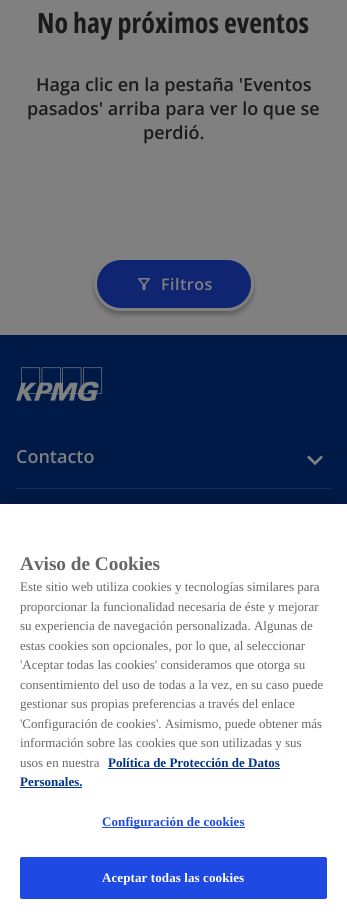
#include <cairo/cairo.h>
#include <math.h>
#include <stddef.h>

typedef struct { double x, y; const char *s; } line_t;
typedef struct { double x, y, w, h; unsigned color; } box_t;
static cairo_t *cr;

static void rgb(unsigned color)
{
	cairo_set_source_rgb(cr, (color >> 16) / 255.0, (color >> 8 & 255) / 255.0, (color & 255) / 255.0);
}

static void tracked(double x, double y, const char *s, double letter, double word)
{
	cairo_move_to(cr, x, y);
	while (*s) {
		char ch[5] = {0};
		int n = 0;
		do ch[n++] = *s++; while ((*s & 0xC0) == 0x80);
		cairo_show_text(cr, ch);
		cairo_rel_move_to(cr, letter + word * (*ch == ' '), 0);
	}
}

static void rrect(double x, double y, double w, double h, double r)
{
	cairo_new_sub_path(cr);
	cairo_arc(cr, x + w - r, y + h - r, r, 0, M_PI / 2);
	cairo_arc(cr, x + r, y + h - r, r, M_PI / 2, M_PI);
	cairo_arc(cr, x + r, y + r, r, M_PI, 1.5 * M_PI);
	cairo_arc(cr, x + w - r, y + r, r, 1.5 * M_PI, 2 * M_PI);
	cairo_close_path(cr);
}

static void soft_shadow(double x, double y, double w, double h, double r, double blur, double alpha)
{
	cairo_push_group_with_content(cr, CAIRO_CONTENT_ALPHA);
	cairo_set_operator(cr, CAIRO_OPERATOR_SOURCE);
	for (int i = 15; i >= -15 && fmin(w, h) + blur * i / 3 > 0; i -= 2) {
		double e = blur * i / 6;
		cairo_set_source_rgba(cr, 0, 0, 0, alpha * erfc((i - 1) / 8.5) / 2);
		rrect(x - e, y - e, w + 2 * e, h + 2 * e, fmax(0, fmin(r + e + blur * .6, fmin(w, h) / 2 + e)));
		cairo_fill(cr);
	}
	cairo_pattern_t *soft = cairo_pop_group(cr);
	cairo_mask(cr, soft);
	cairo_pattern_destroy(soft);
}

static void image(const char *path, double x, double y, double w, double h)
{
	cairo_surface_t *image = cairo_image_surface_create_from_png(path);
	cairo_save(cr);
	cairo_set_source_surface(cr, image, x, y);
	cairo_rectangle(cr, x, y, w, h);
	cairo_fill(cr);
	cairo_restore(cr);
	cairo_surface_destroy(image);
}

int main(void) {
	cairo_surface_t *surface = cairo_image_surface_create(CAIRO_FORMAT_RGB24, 347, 915);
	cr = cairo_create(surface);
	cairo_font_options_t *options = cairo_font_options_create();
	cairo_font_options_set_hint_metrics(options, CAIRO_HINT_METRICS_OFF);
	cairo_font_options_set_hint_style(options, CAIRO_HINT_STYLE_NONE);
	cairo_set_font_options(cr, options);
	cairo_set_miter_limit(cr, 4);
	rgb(0x808080);
	cairo_paint(cr);
	rgb(0x000000);
	soft_shadow(94, 261, 160, 54, 27, 2, 0.25);
	rgb(0x0f2571);
	rrect(95.5, 258.5, 157, 51, 25.5);
	cairo_fill_preserve(cr);
	rgb(0x808080);
	cairo_set_line_width(cr, 3);
	cairo_stroke(cr);
	image("img/1.png", 138, 278, 12, 12);
	rgb(0x001a47);
	cairo_rectangle(cr, 0, 335, 347, 169);
	cairo_fill(cr);
	image("img/2.png", 16, 367, 87, 34);
	rgb(0x1a2e52);
	cairo_rectangle(cr, 16, 488, 315, 1);
	cairo_fill(cr);
	image("img/3.png", 307, 455, 16, 11);
	rgb(0x000000);
	soft_shadow(0, 504, 347, 411, 0, 9, 0.2);
	{
		static const box_t items[] = {
			{0, 504, 347, 411, 0xffffff},
			{108, 768, 172, 1, 0x00338d},
			{20, 787, 62, 1, 0x00338d},
			{102, 827, 143, 1, 0x1e49e2},
		};
		for (size_t i = 0; i < sizeof items / sizeof *items; i++) {
			rgb(items[i].color);
			cairo_rectangle(cr, items[i].x, items[i].y, items[i].w, items[i].h);
			cairo_fill(cr);
		}
	}
	rrect(20.5, 857.5, 306, 41, 1.5);
	cairo_fill_preserve(cr);
	cairo_set_line_width(cr, 1);
	cairo_stroke(cr);
	cairo_select_font_face(cr, "Open Sans Condensed", CAIRO_FONT_SLANT_NORMAL, CAIRO_FONT_WEIGHT_BOLD);
	cairo_set_font_size(cr, 28);
	rgb(0x1a1a1a);
	cairo_move_to(cr, 37, 33);
	cairo_show_text(cr, "No hay próximos eventos");
	cairo_select_font_face(cr, "Open Sans SemiBold", CAIRO_FONT_SLANT_NORMAL, CAIRO_FONT_WEIGHT_NORMAL);
	cairo_set_font_size(cr, 18);
	{
		static const line_t items[] = {
			{36, 91, "Haga clic en la pestaña 'Eventos"},
			{27, 115, "pasados' arriba para ver lo que se"},
			{143, 139, "perdió."},
		};
		for (size_t i = 0; i < sizeof items / sizeof *items; i++) {
			cairo_move_to(cr, items[i].x, items[i].y);
			cairo_show_text(cr, items[i].s);
		}
	}
	cairo_set_font_size(cr, 16);
	rgb(0x808080);
	tracked(161, 290, "Filtros", 0.5, 0);
	cairo_set_font_size(cr, 18);
	cairo_move_to(cr, 16, 463);
	cairo_show_text(cr, "Contacto");
	cairo_select_font_face(cr, "Liberation Serif", CAIRO_FONT_SLANT_NORMAL, CAIRO_FONT_WEIGHT_BOLD);
	cairo_set_font_size(cr, 19.25);
	rgb(0x666666);
	cairo_move_to(cr, 20, 570);
	cairo_show_text(cr, "Aviso de Cookies");
	cairo_select_font_face(cr, "Liberation Serif", CAIRO_FONT_SLANT_NORMAL, CAIRO_FONT_WEIGHT_NORMAL);
	cairo_set_font_size(cr, 13);
	{
		static const line_t items[] = {
			{20, 591, "Este sitio web utiliza cookies y tecnologías similares para"},
			{20, 611, "proporcionar la funcionalidad necesaria de éste y mejorar"},
			{20, 630, "su experiencia de navegación personalizada. Algunas de"},
			{20, 650, "estas cookies son opcionales, por lo que, al seleccionar"},
			{20, 669, "'Aceptar todas las cookies' consideramos que otorga su"},
			{20, 689, "consentimiento del uso de todas a la vez, en su caso puede"},
			{20, 708, "gestionar sus propias preferencias a través del enlace"},
			{20, 728, "'Configuración de cookies'. Asimismo, puede obtener más"},
			{20, 747, "información sobre las cookies que son utilizadas y sus"},
			{20, 767, "usos en nuestra"},
		};
		for (size_t i = 0; i < sizeof items / sizeof *items; i++) {
			cairo_move_to(cr, items[i].x, items[i].y);
			cairo_show_text(cr, items[i].s);
		}
	}
	cairo_select_font_face(cr, "Liberation Serif", CAIRO_FONT_SLANT_NORMAL, CAIRO_FONT_WEIGHT_BOLD);
	rgb(0x00338d);
	cairo_move_to(cr, 108, 767);
	cairo_show_text(cr, "Política de Protección de Datos");
	cairo_move_to(cr, 20, 786);
	cairo_show_text(cr, "Personales.");
	rgb(0x1e49e2);
	tracked(102, 826, "Configuración de cookies", 0.1, 0);
	rgb(0xffffff);
	tracked(102, 882, "Aceptar todas las cookies", 0.1, 0);
	cairo_surface_write_to_png(surface, "page.png");
	cairo_font_options_destroy(options);
	cairo_destroy(cr);
	cairo_surface_destroy(surface);
	return 0;
}
